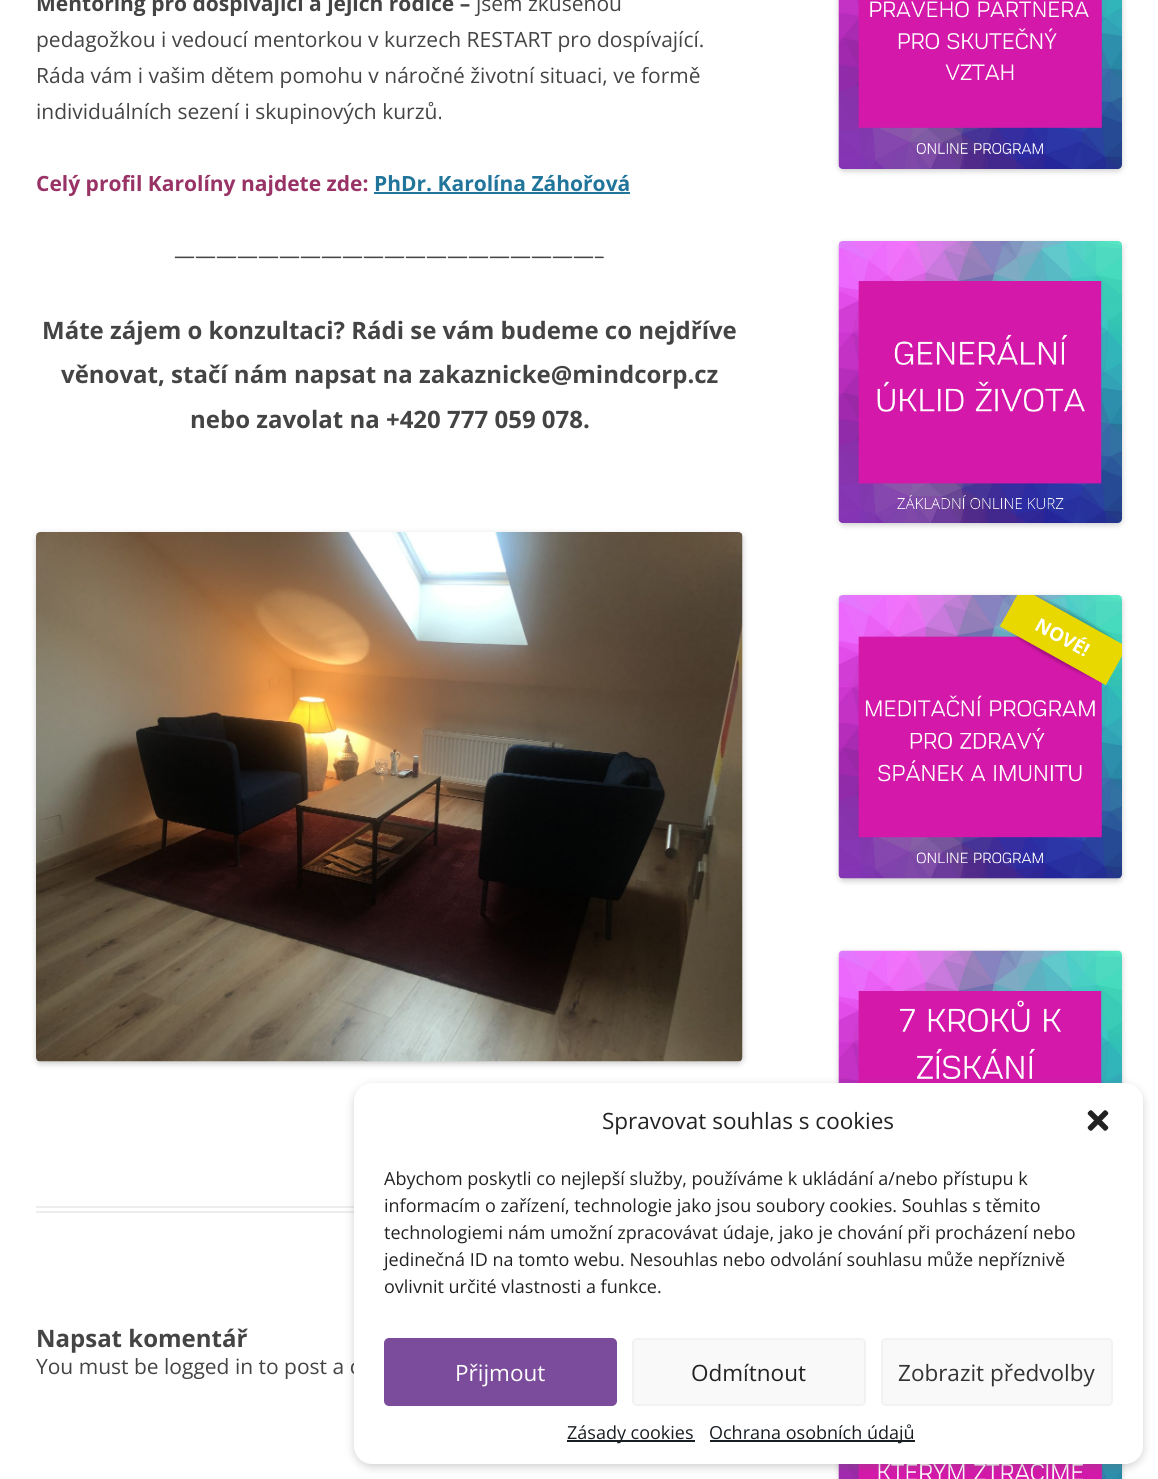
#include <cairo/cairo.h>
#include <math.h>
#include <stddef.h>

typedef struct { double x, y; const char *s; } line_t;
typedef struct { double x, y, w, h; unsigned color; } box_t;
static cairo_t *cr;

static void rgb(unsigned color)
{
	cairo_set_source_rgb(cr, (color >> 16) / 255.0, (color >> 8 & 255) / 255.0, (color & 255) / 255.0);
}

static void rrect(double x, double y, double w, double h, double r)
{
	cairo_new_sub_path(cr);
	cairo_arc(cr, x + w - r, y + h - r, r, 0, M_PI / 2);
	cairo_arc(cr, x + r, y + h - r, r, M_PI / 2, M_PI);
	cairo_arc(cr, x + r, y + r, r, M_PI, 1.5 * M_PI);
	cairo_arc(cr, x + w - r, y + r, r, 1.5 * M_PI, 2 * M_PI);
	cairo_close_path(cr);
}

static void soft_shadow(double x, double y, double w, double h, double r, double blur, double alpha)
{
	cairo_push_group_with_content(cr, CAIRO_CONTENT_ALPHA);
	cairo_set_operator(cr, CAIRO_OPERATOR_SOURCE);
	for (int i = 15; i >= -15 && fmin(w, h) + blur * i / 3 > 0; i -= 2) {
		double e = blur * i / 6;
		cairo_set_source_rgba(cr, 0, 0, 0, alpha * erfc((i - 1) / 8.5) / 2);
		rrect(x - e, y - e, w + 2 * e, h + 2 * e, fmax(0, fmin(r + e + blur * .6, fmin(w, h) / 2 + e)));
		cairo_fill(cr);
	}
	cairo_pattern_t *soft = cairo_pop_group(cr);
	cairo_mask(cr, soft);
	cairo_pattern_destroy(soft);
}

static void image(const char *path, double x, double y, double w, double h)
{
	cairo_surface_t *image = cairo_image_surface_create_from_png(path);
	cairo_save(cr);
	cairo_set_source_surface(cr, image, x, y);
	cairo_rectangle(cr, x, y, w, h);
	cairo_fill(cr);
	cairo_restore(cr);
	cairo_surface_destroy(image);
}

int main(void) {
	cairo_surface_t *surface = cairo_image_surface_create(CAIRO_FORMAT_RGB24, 1158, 1479);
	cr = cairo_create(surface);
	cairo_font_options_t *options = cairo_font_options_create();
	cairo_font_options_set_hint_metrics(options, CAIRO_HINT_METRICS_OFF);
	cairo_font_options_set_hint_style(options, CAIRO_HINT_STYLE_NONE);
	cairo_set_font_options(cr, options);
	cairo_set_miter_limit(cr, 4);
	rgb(0xffffff);
	cairo_paint(cr);
	{
		static const box_t items[] = {
			{36, 1206, 318, 2, 0xededed},
			{36, 1211, 318, 2, 0xededed},
			{374, 192, 256, 2, 0x21759b},
		};
		for (size_t i = 0; i < sizeof items / sizeof *items; i++) {
			rgb(items[i].color);
			cairo_rectangle(cr, items[i].x, items[i].y, items[i].w, items[i].h);
			cairo_fill(cr);
		}
	}
	rgb(0x000000);
	soft_shadow(36, 534, 707, 530, 5, 3, 0.2);
	image("img/1.png", 36, 532, 707, 530);
	soft_shadow(839, -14, 283, 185, 5, 3, 0.2);
	image("img/2.png", 838, 0, 284, 169);
	soft_shadow(839, 243, 283, 282, 5, 3, 0.2);
	image("img/3.png", 838, 241, 284, 282);
	soft_shadow(839, 597, 283, 284, 5, 3, 0.2);
	image("img/4.png", 838, 595, 284, 284);
	soft_shadow(839, 953, 283, 283, 5, 3, 0.2);
	image("img/5.png", 838, 950, 284, 133);
	soft_shadow(839, 1308, 283, 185, 5, 3, 0.2);
	image("img/6.png", 838, 1464, 284, 15);
	rgb(0x646464);
	soft_shadow(354, 1086, 789, 381, 18, 4.5, 0.3);
	cairo_select_font_face(cr, "Open Sans", CAIRO_FONT_SLANT_NORMAL, CAIRO_FONT_WEIGHT_BOLD);
	cairo_set_font_size(cr, 21);
	rgb(0x444444);
	cairo_move_to(cr, 36, 11);
	cairo_show_text(cr, "Mentoring pro dospívající a jejich rodiče –");
	cairo_select_font_face(cr, "Open Sans", CAIRO_FONT_SLANT_NORMAL, CAIRO_FONT_WEIGHT_NORMAL);
	{
		static const line_t items[] = {
			{476, 11, "jsem zkušenou"},
			{36, 47, "pedagožkou i vedoucí mentorkou v kurzech RESTART pro dospívající."},
			{36, 83, "Ráda vám i vašim dětem pomohu v náročné životní situaci, ve formě"},
			{36, 119, "individuálních sezení i skupinových kurzů."},
		};
		for (size_t i = 0; i < sizeof items / sizeof *items; i++) {
			cairo_move_to(cr, items[i].x, items[i].y);
			cairo_show_text(cr, items[i].s);
		}
	}
	cairo_select_font_face(cr, "Open Sans", CAIRO_FONT_SLANT_NORMAL, CAIRO_FONT_WEIGHT_BOLD);
	rgb(0x993366);
	cairo_move_to(cr, 36, 191);
	cairo_show_text(cr, "Celý profil Karolíny najdete zde:");
	rgb(0x21759b);
	cairo_move_to(cr, 374, 191);
	cairo_show_text(cr, "PhDr. Karolína Záhořová");
	cairo_select_font_face(cr, "Open Sans", CAIRO_FONT_SLANT_NORMAL, CAIRO_FONT_WEIGHT_NORMAL);
	rgb(0x444444);
	cairo_move_to(cr, 174, 263);
	cairo_show_text(cr, "————————————————————–");
	cairo_select_font_face(cr, "Open Sans", CAIRO_FONT_SLANT_NORMAL, CAIRO_FONT_WEIGHT_BOLD);
	cairo_set_font_size(cr, 24);
	{
		static const line_t items[] = {
			{42, 339, "Máte zájem o konzultaci? Rádi se vám budeme co nejdříve"},
			{61, 383, "věnovat, stačí nám napsat na zakaznicke@mindcorp.cz"},
			{190, 428, "nebo zavolat na +420 777 059 078."},
			{36, 1347, "Napsat komentář"},
		};
		for (size_t i = 0; i < sizeof items / sizeof *items; i++) {
			cairo_move_to(cr, items[i].x, items[i].y);
			cairo_show_text(cr, items[i].s);
		}
	}
	cairo_select_font_face(cr, "Open Sans", CAIRO_FONT_SLANT_NORMAL, CAIRO_FONT_WEIGHT_NORMAL);
	cairo_set_font_size(cr, 21);
	cairo_move_to(cr, 36, 1374);
	cairo_show_text(cr, "You must be logged in to post a c");
	rgb(0xffffff);
	rrect(354, 1083, 789, 381, 18);
	cairo_fill(cr);
	cairo_set_font_size(cr, 22.5);
	rgb(0x222222);
	cairo_move_to(cr, 602, 1129);
	cairo_show_text(cr, "Spravovat souhlas s cookies");
	image("img/7.png", 1087, 1110, 22, 21);
	cairo_set_font_size(cr, 18);
	{
		static const line_t items[] = {
			{384, 1185, "Abychom poskytli co nejlepší služby, používáme k ukládání a/nebo přístupu k"},
			{384, 1212, "informacím o zařízení, technologie jako jsou soubory cookies. Souhlas s těmito"},
			{384, 1239, "technologiemi nám umožní zpracovávat údaje, jako je chování při procházení nebo"},
			{384, 1266, "jedinečná ID na tomto webu. Nesouhlas nebo odvolání souhlasu může nepříznivě"},
			{384, 1293, "ovlivnit určité vlastnosti a funkce."},
		};
		for (size_t i = 0; i < sizeof items / sizeof *items; i++) {
			cairo_move_to(cr, items[i].x, items[i].y);
			cairo_show_text(cr, items[i].s);
		}
	}
	rgb(0x7c4c9c);
	rrect(385, 1339, 231, 66, 4);
	cairo_fill_preserve(cr);
	cairo_stroke(cr);
	cairo_set_font_size(cr, 22.5);
	rgb(0xffffff);
	cairo_move_to(cr, 455, 1381);
	cairo_show_text(cr, "Přijmout");
	rgb(0xf9f9f9);
	rrect(633, 1339, 232, 66, 4);
	cairo_fill_preserve(cr);
	rgb(0xf2f2f2);
	cairo_stroke(cr);
	rgb(0x222222);
	cairo_move_to(cr, 691, 1381);
	cairo_show_text(cr, "Odmítnout");
	rgb(0xf9f9f9);
	rrect(882, 1339, 230, 66, 4);
	cairo_fill_preserve(cr);
	rgb(0xf2f2f2);
	cairo_stroke(cr);
	rgb(0x333333);
	cairo_move_to(cr, 898, 1381);
	cairo_show_text(cr, "Zobrazit předvolby");
	rgb(0x191e23);
	cairo_rectangle(cr, 567, 1440, 128, 2);
	cairo_fill(cr);
	cairo_set_font_size(cr, 18);
	cairo_move_to(cr, 567, 1439);
	cairo_show_text(cr, "Zásady cookies");
	cairo_rectangle(cr, 710, 1440, 205, 2);
	cairo_fill(cr);
	cairo_move_to(cr, 709, 1439);
	cairo_show_text(cr, "Ochrana osobních údajů");
	cairo_surface_write_to_png(surface, "page.png");
	cairo_font_options_destroy(options);
	cairo_destroy(cr);
	cairo_surface_destroy(surface);
	return 0;
}
